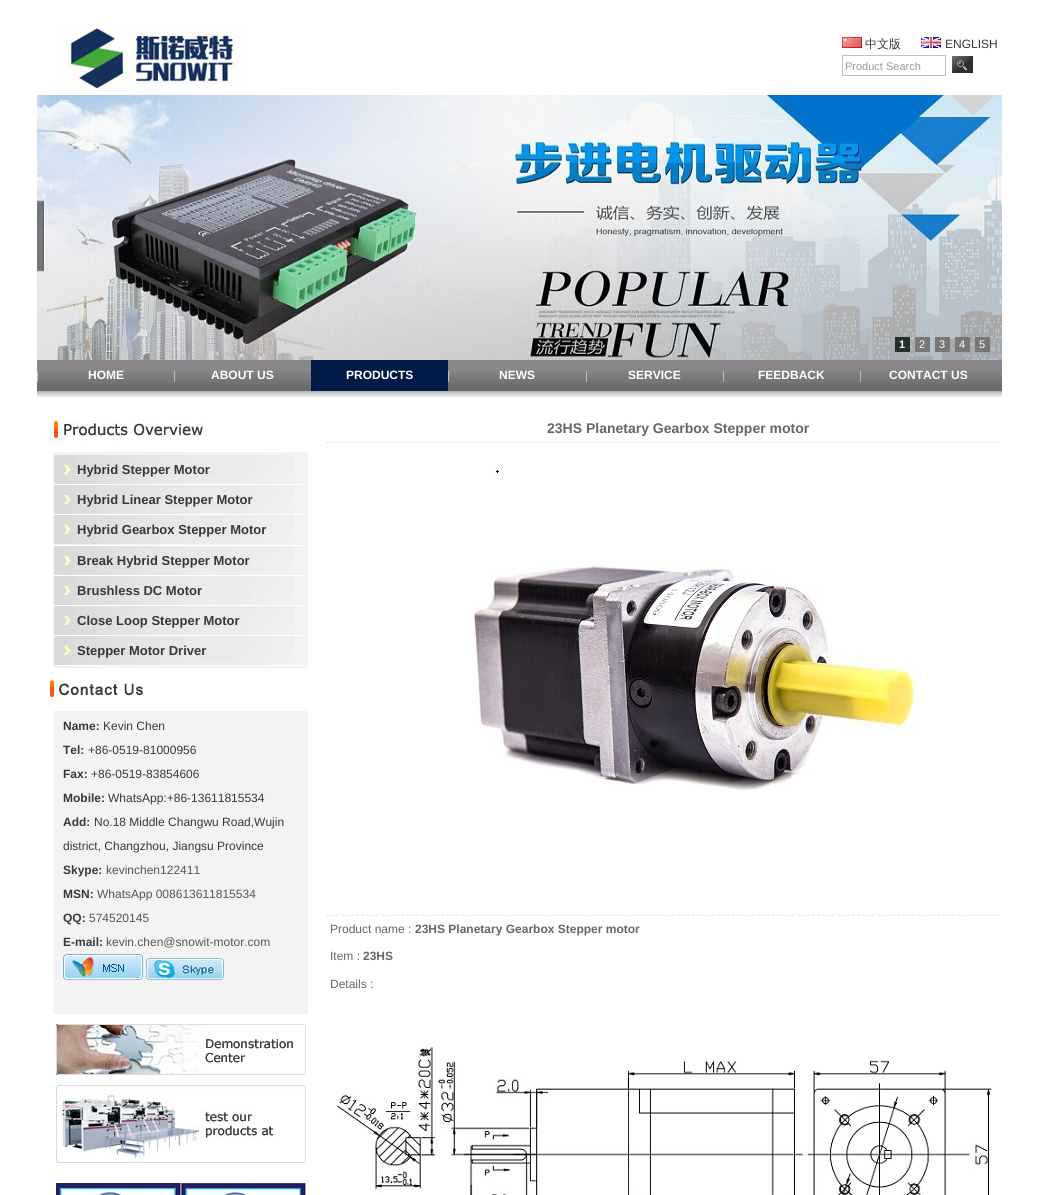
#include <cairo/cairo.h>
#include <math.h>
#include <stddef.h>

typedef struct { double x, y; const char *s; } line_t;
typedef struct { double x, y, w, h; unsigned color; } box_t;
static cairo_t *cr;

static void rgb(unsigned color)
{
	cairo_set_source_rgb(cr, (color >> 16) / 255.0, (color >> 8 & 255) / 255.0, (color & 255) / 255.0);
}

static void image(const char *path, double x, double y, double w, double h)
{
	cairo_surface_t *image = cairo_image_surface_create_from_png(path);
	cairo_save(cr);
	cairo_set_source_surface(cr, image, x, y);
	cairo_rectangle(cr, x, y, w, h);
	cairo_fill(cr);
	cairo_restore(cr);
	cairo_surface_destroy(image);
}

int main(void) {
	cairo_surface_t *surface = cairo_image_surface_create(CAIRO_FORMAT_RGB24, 1039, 1195);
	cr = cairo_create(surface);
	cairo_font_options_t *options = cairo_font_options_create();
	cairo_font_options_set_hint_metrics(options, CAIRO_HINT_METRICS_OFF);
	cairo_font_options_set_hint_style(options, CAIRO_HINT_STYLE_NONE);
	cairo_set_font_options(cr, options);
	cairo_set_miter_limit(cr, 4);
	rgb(0xffffff);
	cairo_paint(cr);
	image("img/1.png", 61, 23, 184, 72);
	image("img/2.png", 842, 37, 20, 11);
	image("img/3.png", 921, 37, 20, 11);
	cairo_rectangle(cr, 842.5, 55.5, 103, 20);
	rgb(0xc0c0c0);
	cairo_set_line_width(cr, 1);
	cairo_stroke(cr);
	image("img/4.png", 952, 56, 21, 17);
	image("img/5.png", 37, 95, 965, 265);
	{
		static const box_t items[] = {
			{895, 337, 15, 15, 0x21302b},
			{915, 337, 15, 15, 0x787777},
			{935, 337, 15, 15, 0x787777},
			{955, 337, 15, 15, 0x787777},
			{975, 337, 15, 15, 0x787777},
		};
		for (size_t i = 0; i < sizeof items / sizeof *items; i++) {
			rgb(items[i].color);
			cairo_rectangle(cr, items[i].x, items[i].y, items[i].w, items[i].h);
			cairo_fill(cr);
		}
	}
	image("img/6.png", 37, 360, 965, 31);
	image("img/7.png", 37, 368, 8, 16);
	image("img/7.png", 174, 368, 8, 16);
	rgb(0x001a47);
	cairo_rectangle(cr, 311, 360, 137, 31);
	cairo_fill(cr);
	image("img/8.png", 448, 368, 7, 16);
	image("img/7.png", 586, 368, 8, 16);
	image("img/7.png", 723, 368, 8, 16);
	image("img/7.png", 860, 368, 8, 16);
	image("img/9.png", 37, 391, 965, 7);
	image("img/10.png", 52, 419, 152, 24);
	rgb(0xf3f3f3);
	cairo_rectangle(cr, 53, 452, 255, 216);
	cairo_fill(cr);
	image("img/11.png", 54, 455, 240, 29);
	rgb(0xffffff);
	cairo_rectangle(cr, 54, 484, 251, 1);
	cairo_fill(cr);
	image("img/12.png", 64, 465, 7, 9);
	image("img/11.png", 54, 485, 240, 29);
	cairo_rectangle(cr, 54, 514, 251, 1);
	cairo_fill(cr);
	image("img/12.png", 64, 495, 7, 9);
	image("img/11.png", 54, 515, 240, 29);
	cairo_rectangle(cr, 54, 545, 251, 1);
	cairo_fill(cr);
	image("img/12.png", 64, 525, 7, 9);
	image("img/11.png", 54, 546, 240, 29);
	cairo_rectangle(cr, 54, 575, 251, 1);
	cairo_fill(cr);
	image("img/12.png", 64, 556, 7, 9);
	image("img/11.png", 54, 576, 240, 29);
	cairo_rectangle(cr, 54, 605, 251, 1);
	cairo_fill(cr);
	image("img/12.png", 64, 586, 7, 9);
	image("img/11.png", 54, 606, 240, 29);
	cairo_rectangle(cr, 54, 635, 251, 1);
	cairo_fill(cr);
	image("img/12.png", 64, 616, 7, 9);
	image("img/11.png", 54, 636, 240, 29);
	cairo_rectangle(cr, 54, 665, 251, 1);
	cairo_fill(cr);
	image("img/12.png", 64, 646, 7, 9);
	image("img/13.png", 50, 678, 93, 24);
	rgb(0xf3f3f3);
	cairo_rectangle(cr, 53, 711, 255, 303);
	cairo_fill(cr);
	image("img/14.png", 63, 954, 80, 26);
	image("img/15.png", 146, 958, 78, 22);
	image("img/16.png", 56, 1024, 250, 51);
	image("img/17.png", 56, 1085, 250, 78);
	image("img/18.png", 56, 1183, 250, 12);
	cairo_save(cr);
	cairo_rectangle(cr, 326, 415, 676, 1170);
	cairo_clip(cr);
	cairo_new_path(cr);
	cairo_move_to(cr, 326, 442.5);
	cairo_line_to(cr, 1031, 442.5);
	rgb(0xe7e7e7);
	cairo_set_dash(cr, (double[]){3, 2.01}, 2, 0);
	cairo_stroke(cr);
	cairo_new_path(cr);
	cairo_move_to(cr, 326, 915.5);
	cairo_line_to(cr, 1031, 915.5);
	cairo_stroke(cr);
	cairo_restore(cr);
	image("img/19.png", 473, 466, 446, 325);
	image("img/20.png", 336, 1046, 656, 149);
	cairo_select_font_face(cr, "WenQuanYi Zen Hei Medium", CAIRO_FONT_SLANT_NORMAL, CAIRO_FONT_WEIGHT_NORMAL);
	cairo_set_font_size(cr, 12);
	rgb(0x383838);
	cairo_move_to(cr, 865, 48);
	cairo_show_text(cr, "中文版");
	cairo_select_font_face(cr, "Liberation Sans", CAIRO_FONT_SLANT_NORMAL, CAIRO_FONT_WEIGHT_NORMAL);
	cairo_move_to(cr, 945, 48);
	cairo_show_text(cr, "ENGLISH");
	cairo_set_font_size(cr, 11);
	rgb(0x999999);
	cairo_move_to(cr, 845, 70);
	cairo_show_text(cr, "Product Search");
	cairo_select_font_face(cr, "Liberation Sans", CAIRO_FONT_SLANT_NORMAL, CAIRO_FONT_WEIGHT_BOLD);
	rgb(0xffffff);
	cairo_move_to(cr, 899, 348);
	cairo_show_text(cr, "1");
	cairo_select_font_face(cr, "Liberation Sans", CAIRO_FONT_SLANT_NORMAL, CAIRO_FONT_WEIGHT_NORMAL);
	{
		static const line_t items[] = {
			{919, 348, "2"},
			{939, 348, "3"},
			{959, 348, "4"},
			{979, 348, "5"},
		};
		for (size_t i = 0; i < sizeof items / sizeof *items; i++) {
			cairo_move_to(cr, items[i].x, items[i].y);
			cairo_show_text(cr, items[i].s);
		}
	}
	cairo_select_font_face(cr, "Liberation Sans", CAIRO_FONT_SLANT_NORMAL, CAIRO_FONT_WEIGHT_BOLD);
	cairo_set_font_size(cr, 12);
	{
		static const line_t items[] = {
			{88, 379, "HOME"},
			{211, 379, "ABOUT US"},
			{346, 379, "PRODUCTS"},
			{499, 379, "NEWS"},
			{628, 379, "SERVICE"},
			{758, 379, "FEEDBACK"},
			{889, 379, "CONTACT US"},
		};
		for (size_t i = 0; i < sizeof items / sizeof *items; i++) {
			cairo_move_to(cr, items[i].x, items[i].y);
			cairo_show_text(cr, items[i].s);
		}
	}
	cairo_set_font_size(cr, 13);
	rgb(0x383838);
	{
		static const line_t items[] = {
			{77, 474, "Hybrid Stepper Motor"},
			{77, 504, "Hybrid Linear Stepper Motor"},
			{77, 534, "Hybrid Gearbox Stepper Motor"},
			{77, 565, "Break Hybrid Stepper Motor"},
			{77, 595, "Brushless DC Motor"},
			{77, 625, "Close Loop Stepper Motor"},
			{77, 655, "Stepper Motor Driver"},
		};
		for (size_t i = 0; i < sizeof items / sizeof *items; i++) {
			cairo_move_to(cr, items[i].x, items[i].y);
			cairo_show_text(cr, items[i].s);
		}
	}
	cairo_set_font_size(cr, 12);
	cairo_move_to(cr, 63, 730);
	cairo_show_text(cr, "Name:");
	cairo_select_font_face(cr, "Liberation Sans", CAIRO_FONT_SLANT_NORMAL, CAIRO_FONT_WEIGHT_NORMAL);
	cairo_move_to(cr, 103, 730);
	cairo_show_text(cr, "Kevin Chen");
	cairo_select_font_face(cr, "Liberation Sans", CAIRO_FONT_SLANT_NORMAL, CAIRO_FONT_WEIGHT_BOLD);
	cairo_move_to(cr, 63, 754);
	cairo_show_text(cr, "Tel:");
	cairo_select_font_face(cr, "Liberation Sans", CAIRO_FONT_SLANT_NORMAL, CAIRO_FONT_WEIGHT_NORMAL);
	cairo_move_to(cr, 88, 754);
	cairo_show_text(cr, "+86-0519-81000956");
	cairo_select_font_face(cr, "Liberation Sans", CAIRO_FONT_SLANT_NORMAL, CAIRO_FONT_WEIGHT_BOLD);
	cairo_move_to(cr, 63, 778);
	cairo_show_text(cr, "Fax:");
	cairo_select_font_face(cr, "Liberation Sans", CAIRO_FONT_SLANT_NORMAL, CAIRO_FONT_WEIGHT_NORMAL);
	cairo_move_to(cr, 91, 778);
	cairo_show_text(cr, "+86-0519-83854606");
	cairo_select_font_face(cr, "Liberation Sans", CAIRO_FONT_SLANT_NORMAL, CAIRO_FONT_WEIGHT_BOLD);
	cairo_move_to(cr, 63, 802);
	cairo_show_text(cr, "Mobile:");
	cairo_select_font_face(cr, "Liberation Sans", CAIRO_FONT_SLANT_NORMAL, CAIRO_FONT_WEIGHT_NORMAL);
	cairo_move_to(cr, 108, 802);
	cairo_show_text(cr, "WhatsApp:+86-13611815534");
	cairo_select_font_face(cr, "Liberation Sans", CAIRO_FONT_SLANT_NORMAL, CAIRO_FONT_WEIGHT_BOLD);
	cairo_move_to(cr, 63, 826);
	cairo_show_text(cr, "Add:");
	cairo_select_font_face(cr, "Liberation Sans", CAIRO_FONT_SLANT_NORMAL, CAIRO_FONT_WEIGHT_NORMAL);
	cairo_move_to(cr, 94, 826);
	cairo_show_text(cr, "No.18 Middle Changwu Road,Wujin");
	cairo_move_to(cr, 63, 850);
	cairo_show_text(cr, "district, Changzhou, Jiangsu Province");
	cairo_select_font_face(cr, "Liberation Sans", CAIRO_FONT_SLANT_NORMAL, CAIRO_FONT_WEIGHT_BOLD);
	cairo_move_to(cr, 63, 874);
	cairo_show_text(cr, "Skype:");
	cairo_select_font_face(cr, "Liberation Sans", CAIRO_FONT_SLANT_NORMAL, CAIRO_FONT_WEIGHT_NORMAL);
	rgb(0x555555);
	cairo_move_to(cr, 106, 874);
	cairo_show_text(cr, "kevinchen122411");
	cairo_select_font_face(cr, "Liberation Sans", CAIRO_FONT_SLANT_NORMAL, CAIRO_FONT_WEIGHT_BOLD);
	rgb(0x383838);
	cairo_move_to(cr, 63, 898);
	cairo_show_text(cr, "MSN:");
	cairo_select_font_face(cr, "Liberation Sans", CAIRO_FONT_SLANT_NORMAL, CAIRO_FONT_WEIGHT_NORMAL);
	rgb(0x555555);
	cairo_move_to(cr, 97, 898);
	cairo_show_text(cr, "WhatsApp 008613611815534");
	cairo_select_font_face(cr, "Liberation Sans", CAIRO_FONT_SLANT_NORMAL, CAIRO_FONT_WEIGHT_BOLD);
	rgb(0x383838);
	cairo_move_to(cr, 63, 922);
	cairo_show_text(cr, "QQ:");
	cairo_select_font_face(cr, "Liberation Sans", CAIRO_FONT_SLANT_NORMAL, CAIRO_FONT_WEIGHT_NORMAL);
	rgb(0x555555);
	cairo_move_to(cr, 89, 922);
	cairo_show_text(cr, "574520145");
	cairo_select_font_face(cr, "Liberation Sans", CAIRO_FONT_SLANT_NORMAL, CAIRO_FONT_WEIGHT_BOLD);
	rgb(0x383838);
	cairo_move_to(cr, 63, 946);
	cairo_show_text(cr, "E-mail:");
	cairo_select_font_face(cr, "Liberation Sans", CAIRO_FONT_SLANT_NORMAL, CAIRO_FONT_WEIGHT_NORMAL);
	rgb(0x555555);
	cairo_move_to(cr, 106, 946);
	cairo_show_text(cr, "kevin.chen@snowit-motor.com");
	cairo_select_font_face(cr, "Liberation Sans", CAIRO_FONT_SLANT_NORMAL, CAIRO_FONT_WEIGHT_BOLD);
	cairo_set_font_size(cr, 14);
	rgb(0x666666);
	cairo_move_to(cr, 547, 433);
	cairo_show_text(cr, "23HS Planetary Gearbox Stepper motor");
	cairo_select_font_face(cr, "Liberation Sans", CAIRO_FONT_SLANT_NORMAL, CAIRO_FONT_WEIGHT_NORMAL);
	cairo_set_font_size(cr, 12);
	cairo_move_to(cr, 330, 933);
	cairo_show_text(cr, "Product name :");
	cairo_select_font_face(cr, "Liberation Sans", CAIRO_FONT_SLANT_NORMAL, CAIRO_FONT_WEIGHT_BOLD);
	cairo_move_to(cr, 415, 933);
	cairo_show_text(cr, "23HS Planetary Gearbox Stepper motor");
	cairo_select_font_face(cr, "Liberation Sans", CAIRO_FONT_SLANT_NORMAL, CAIRO_FONT_WEIGHT_NORMAL);
	cairo_move_to(cr, 330, 960);
	cairo_show_text(cr, "Item :");
	cairo_select_font_face(cr, "Liberation Sans", CAIRO_FONT_SLANT_NORMAL, CAIRO_FONT_WEIGHT_BOLD);
	cairo_move_to(cr, 363, 960);
	cairo_show_text(cr, "23HS");
	cairo_select_font_face(cr, "Liberation Sans", CAIRO_FONT_SLANT_NORMAL, CAIRO_FONT_WEIGHT_NORMAL);
	cairo_move_to(cr, 330, 988);
	cairo_show_text(cr, "Details :");
	cairo_surface_write_to_png(surface, "page.png");
	cairo_font_options_destroy(options);
	cairo_destroy(cr);
	cairo_surface_destroy(surface);
	return 0;
}
